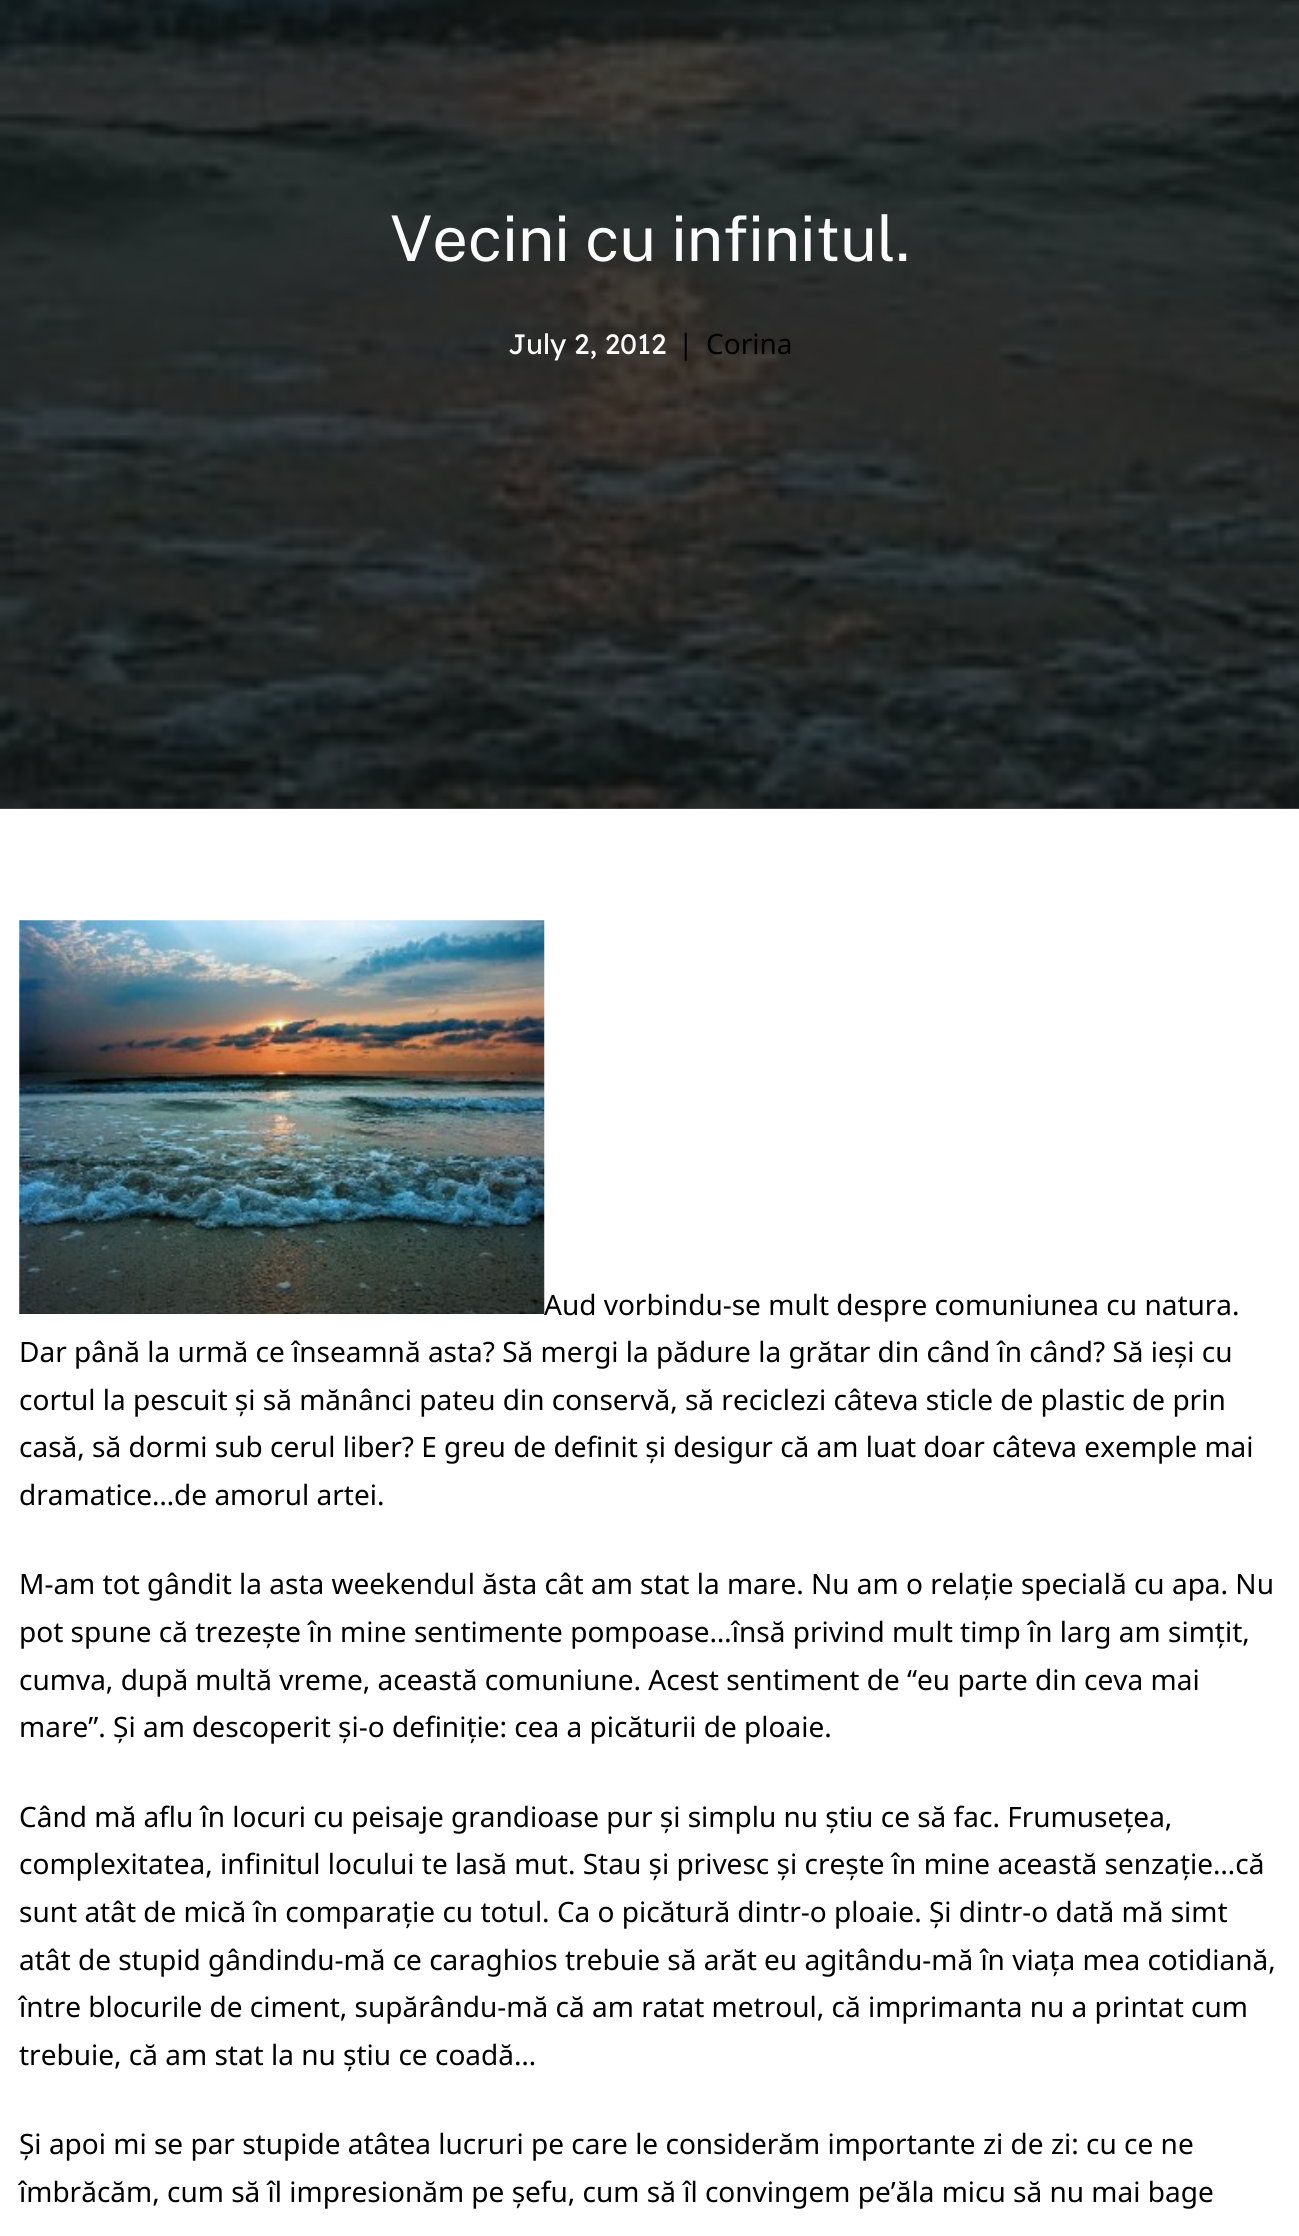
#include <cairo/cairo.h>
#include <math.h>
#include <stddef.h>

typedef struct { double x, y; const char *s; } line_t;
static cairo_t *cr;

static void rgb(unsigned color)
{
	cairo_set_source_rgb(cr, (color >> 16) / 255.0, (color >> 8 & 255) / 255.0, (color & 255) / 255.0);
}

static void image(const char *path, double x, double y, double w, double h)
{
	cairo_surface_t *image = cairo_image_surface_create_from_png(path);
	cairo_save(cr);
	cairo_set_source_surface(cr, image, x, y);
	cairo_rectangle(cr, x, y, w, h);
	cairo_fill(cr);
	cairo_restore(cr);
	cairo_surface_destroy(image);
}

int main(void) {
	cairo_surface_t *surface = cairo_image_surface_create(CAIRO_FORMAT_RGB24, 1299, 2236);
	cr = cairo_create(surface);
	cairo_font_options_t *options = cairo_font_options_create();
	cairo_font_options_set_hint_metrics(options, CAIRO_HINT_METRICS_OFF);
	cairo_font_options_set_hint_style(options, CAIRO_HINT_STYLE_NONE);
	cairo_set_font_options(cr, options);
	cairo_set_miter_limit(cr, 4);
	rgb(0xffffff);
	cairo_paint(cr);
	rgb(0x414141);
	cairo_rectangle(cr, 0, 808, 1299, 1);
	cairo_fill(cr);
	image("img/1.png", 0, 0, 1299, 809);
	image("img/2.png", 19, 920, 526, 394);
	cairo_select_font_face(cr, "Public Sans Thin", CAIRO_FONT_SLANT_NORMAL, CAIRO_FONT_WEIGHT_NORMAL);
	cairo_set_font_size(cr, 63);
	rgb(0xfbfbfb);
	cairo_move_to(cr, 390, 261);
	cairo_show_text(cr, "Vecini cu infinitul.");
	cairo_select_font_face(cr, "Readex Pro", CAIRO_FONT_SLANT_NORMAL, CAIRO_FONT_WEIGHT_NORMAL);
	cairo_set_font_size(cr, 28);
	cairo_move_to(cr, 508, 354);
	cairo_show_text(cr, "July 2, 2012");
	cairo_select_font_face(cr, "Noto Sans", CAIRO_FONT_SLANT_NORMAL, CAIRO_FONT_WEIGHT_NORMAL);
	rgb(0x000000);
	{
		static const line_t items[] = {
			{678, 354, "|"},
			{706, 354, "Corina"},
			{544, 1315, "Aud vorbindu-se mult despre comuniunea cu natura."},
			{19, 1362, "Dar până la urmă ce înseamnă asta? Să mergi la pădure la grătar din când în când? Să ieși cu"},
			{19, 1410, "cortul la pescuit și să mănânci pateu din conservă, să reciclezi câteva sticle de plastic de prin"},
			{19, 1457, "casă, să dormi sub cerul liber? E greu de definit și desigur că am luat doar câteva exemple mai"},
			{19, 1505, "dramatice…de amorul artei."},
			{19, 1594, "M-am tot gândit la asta weekendul ăsta cât am stat la mare. Nu am o relație specială cu apa. Nu"},
			{19, 1642, "pot spune că trezește în mine sentimente pompoase…însă privind mult timp în larg am simțit,"},
			{19, 1690, "cumva, după multă vreme, această comuniune. Acest sentiment de “eu parte din ceva mai"},
			{19, 1737, "mare”. Și am descoperit și-o definiție: cea a picăturii de ploaie."},
			{19, 1827, "Când mă aflu în locuri cu peisaje grandioase pur și simplu nu știu ce să fac. Frumusețea,"},
			{19, 1874, "complexitatea, infinitul locului te lasă mut. Stau și privesc și crește în mine această senzație…că"},
			{19, 1922, "sunt atât de mică în comparație cu totul. Ca o picătură dintr-o ploaie. Și dintr-o dată mă simt"},
			{19, 1970, "atât de stupid gândindu-mă ce caraghios trebuie să arăt eu agitându-mă în viața mea cotidiană,"},
			{19, 2017, "între blocurile de ciment, supărându-mă că am ratat metroul, că imprimanta nu a printat cum"},
			{19, 2065, "trebuie, că am stat la nu știu ce coadă…"},
			{19, 2154, "Și apoi mi se par stupide atâtea lucruri pe care le considerăm importante zi de zi: cu ce ne"},
			{19, 2202, "îmbrăcăm, cum să îl impresionăm pe șefu, cum să îl convingem pe’ăla micu să nu mai bage"},
		};
		for (size_t i = 0; i < sizeof items / sizeof *items; i++) {
			cairo_move_to(cr, items[i].x, items[i].y);
			cairo_show_text(cr, items[i].s);
		}
	}
	cairo_surface_write_to_png(surface, "page.png");
	cairo_font_options_destroy(options);
	cairo_destroy(cr);
	cairo_surface_destroy(surface);
	return 0;
}
